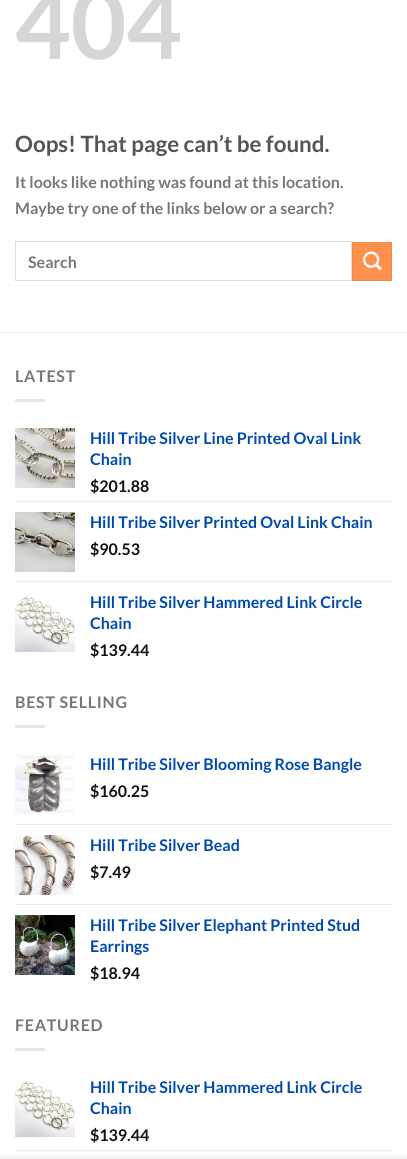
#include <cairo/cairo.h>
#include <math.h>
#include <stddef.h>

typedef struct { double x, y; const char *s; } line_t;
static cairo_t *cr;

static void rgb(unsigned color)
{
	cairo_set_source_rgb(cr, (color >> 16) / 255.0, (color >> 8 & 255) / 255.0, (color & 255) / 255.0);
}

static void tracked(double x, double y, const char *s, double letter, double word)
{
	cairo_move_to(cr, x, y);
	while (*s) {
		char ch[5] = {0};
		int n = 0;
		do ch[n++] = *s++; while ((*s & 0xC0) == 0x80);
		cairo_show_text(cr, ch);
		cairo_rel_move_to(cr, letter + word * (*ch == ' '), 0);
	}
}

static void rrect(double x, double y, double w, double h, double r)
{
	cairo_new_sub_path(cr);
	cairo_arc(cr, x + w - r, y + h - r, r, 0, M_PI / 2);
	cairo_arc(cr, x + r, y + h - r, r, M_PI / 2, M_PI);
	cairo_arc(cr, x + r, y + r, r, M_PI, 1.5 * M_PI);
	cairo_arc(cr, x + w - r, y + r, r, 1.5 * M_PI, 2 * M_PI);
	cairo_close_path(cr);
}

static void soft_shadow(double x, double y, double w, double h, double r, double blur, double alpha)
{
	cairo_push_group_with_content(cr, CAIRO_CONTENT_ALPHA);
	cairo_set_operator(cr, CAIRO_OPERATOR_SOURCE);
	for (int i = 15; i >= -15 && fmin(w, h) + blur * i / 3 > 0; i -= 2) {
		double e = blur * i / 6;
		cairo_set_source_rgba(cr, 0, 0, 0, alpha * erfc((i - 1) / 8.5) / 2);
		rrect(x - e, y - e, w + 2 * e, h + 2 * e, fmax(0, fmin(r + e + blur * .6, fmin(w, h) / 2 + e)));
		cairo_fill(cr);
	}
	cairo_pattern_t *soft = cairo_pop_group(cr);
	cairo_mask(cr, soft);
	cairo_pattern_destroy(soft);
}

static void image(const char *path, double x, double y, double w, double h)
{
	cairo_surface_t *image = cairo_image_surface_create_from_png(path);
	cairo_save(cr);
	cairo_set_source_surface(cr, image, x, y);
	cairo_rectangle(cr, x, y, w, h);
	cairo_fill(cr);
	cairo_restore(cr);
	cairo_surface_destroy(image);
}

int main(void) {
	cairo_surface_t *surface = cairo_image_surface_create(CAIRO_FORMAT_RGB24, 407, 1159);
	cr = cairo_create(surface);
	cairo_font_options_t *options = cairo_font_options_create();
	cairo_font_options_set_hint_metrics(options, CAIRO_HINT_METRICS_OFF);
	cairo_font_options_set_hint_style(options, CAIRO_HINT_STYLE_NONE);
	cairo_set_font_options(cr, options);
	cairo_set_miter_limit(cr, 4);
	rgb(0xffffff);
	cairo_paint(cr);
	cairo_rectangle(cr, 15.5, 241.5, 336, 39);
	rgb(0xdddddd);
	cairo_set_line_width(cr, 1);
	cairo_stroke(cr);
	rgb(0xff914d);
	cairo_rectangle(cr, 352.5, 242.5, 39, 38);
	cairo_fill_preserve(cr);
	rgb(0xf28a49);
	cairo_stroke(cr);
	image("img/1.png", 363, 251, 19, 20);
	rgb(0xf2f2f2);
	cairo_rectangle(cr, 0, 332, 407, 1);
	cairo_fill(cr);
	rgb(0xe6e6e6);
	cairo_rectangle(cr, 15, 399, 30, 3);
	cairo_fill(cr);
	image("img/2.png", 15, 428, 60, 60);
	rgb(0xececec);
	cairo_rectangle(cr, 15, 501, 377, 1);
	cairo_fill(cr);
	image("img/3.png", 15, 512, 60, 60);
	cairo_rectangle(cr, 15, 581, 377, 1);
	cairo_fill(cr);
	image("img/4.png", 15, 595, 60, 57);
	rgb(0xe6e6e6);
	cairo_rectangle(cr, 15, 725, 30, 3);
	cairo_fill(cr);
	image("img/5.png", 15, 754, 59, 60);
	rgb(0xececec);
	cairo_rectangle(cr, 15, 824, 377, 1);
	cairo_fill(cr);
	image("img/6.png", 15, 835, 60, 60);
	cairo_rectangle(cr, 15, 904, 377, 1);
	cairo_fill(cr);
	image("img/7.png", 15, 915, 60, 60);
	rgb(0xe6e6e6);
	cairo_rectangle(cr, 15, 1048, 30, 3);
	cairo_fill(cr);
	image("img/4.png", 15, 1080, 60, 57);
	rgb(0xececec);
	cairo_rectangle(cr, 15, 1150, 377, 1);
	cairo_fill(cr);
	rgb(0x000000);
	soft_shadow(0, 1159, 407, 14, 0, 4.5, 0.14);
	cairo_select_font_face(cr, "Lato", CAIRO_FONT_SLANT_NORMAL, CAIRO_FONT_WEIGHT_BOLD);
	cairo_set_font_size(cr, 96);
	rgb(0xd6d6d6);
	cairo_move_to(cr, 15, 59);
	cairo_show_text(cr, "404");
	cairo_set_font_size(cr, 22.4);
	rgb(0x555555);
	cairo_move_to(cr, 15, 152);
	cairo_show_text(cr, "Oops! That page can’t be found.");
	cairo_set_font_size(cr, 16);
	rgb(0x777777);
	{
		static const line_t items[] = {
			{15, 188, "It looks like nothing was found at this location."},
			{15, 214, "Maybe try one of the links below or a search?"},
			{28, 268, "Search"},
		};
		for (size_t i = 0; i < sizeof items / sizeof *items; i++) {
			cairo_move_to(cr, items[i].x, items[i].y);
			cairo_show_text(cr, items[i].s);
		}
	}
	tracked(15, 382, "LATEST", 0.75, 0);
	rgb(0x004aad);
	cairo_move_to(cr, 90, 444);
	cairo_show_text(cr, "Hill Tribe Silver Line Printed Oval Link");
	cairo_move_to(cr, 90, 465);
	cairo_show_text(cr, "Chain");
	rgb(0x111111);
	cairo_move_to(cr, 90, 492);
	cairo_show_text(cr, "$201.88");
	rgb(0x004aad);
	cairo_move_to(cr, 90, 528);
	cairo_show_text(cr, "Hill Tribe Silver Printed Oval Link Chain");
	rgb(0x111111);
	cairo_move_to(cr, 90, 555);
	cairo_show_text(cr, "$90.53");
	rgb(0x004aad);
	cairo_move_to(cr, 90, 608);
	cairo_show_text(cr, "Hill Tribe Silver Hammered Link Circle");
	cairo_move_to(cr, 90, 629);
	cairo_show_text(cr, "Chain");
	rgb(0x111111);
	cairo_move_to(cr, 90, 656);
	cairo_show_text(cr, "$139.44");
	rgb(0x777777);
	tracked(15, 708, "BEST SELLING", 0.75, 0);
	rgb(0x004aad);
	cairo_move_to(cr, 90, 770);
	cairo_show_text(cr, "Hill Tribe Silver Blooming Rose Bangle");
	rgb(0x111111);
	cairo_move_to(cr, 90, 797);
	cairo_show_text(cr, "$160.25");
	rgb(0x004aad);
	cairo_move_to(cr, 90, 851);
	cairo_show_text(cr, "Hill Tribe Silver Bead");
	rgb(0x111111);
	cairo_move_to(cr, 90, 878);
	cairo_show_text(cr, "$7.49");
	rgb(0x004aad);
	cairo_move_to(cr, 90, 931);
	cairo_show_text(cr, "Hill Tribe Silver Elephant Printed Stud");
	cairo_move_to(cr, 90, 952);
	cairo_show_text(cr, "Earrings");
	rgb(0x111111);
	cairo_move_to(cr, 90, 979);
	cairo_show_text(cr, "$18.94");
	rgb(0x777777);
	tracked(15, 1031, "FEATURED", 0.75, 0);
	rgb(0x004aad);
	cairo_move_to(cr, 90, 1093);
	cairo_show_text(cr, "Hill Tribe Silver Hammered Link Circle");
	cairo_move_to(cr, 90, 1114);
	cairo_show_text(cr, "Chain");
	rgb(0x111111);
	cairo_move_to(cr, 90, 1141);
	cairo_show_text(cr, "$139.44");
	cairo_surface_write_to_png(surface, "page.png");
	cairo_font_options_destroy(options);
	cairo_destroy(cr);
	cairo_surface_destroy(surface);
	return 0;
}
